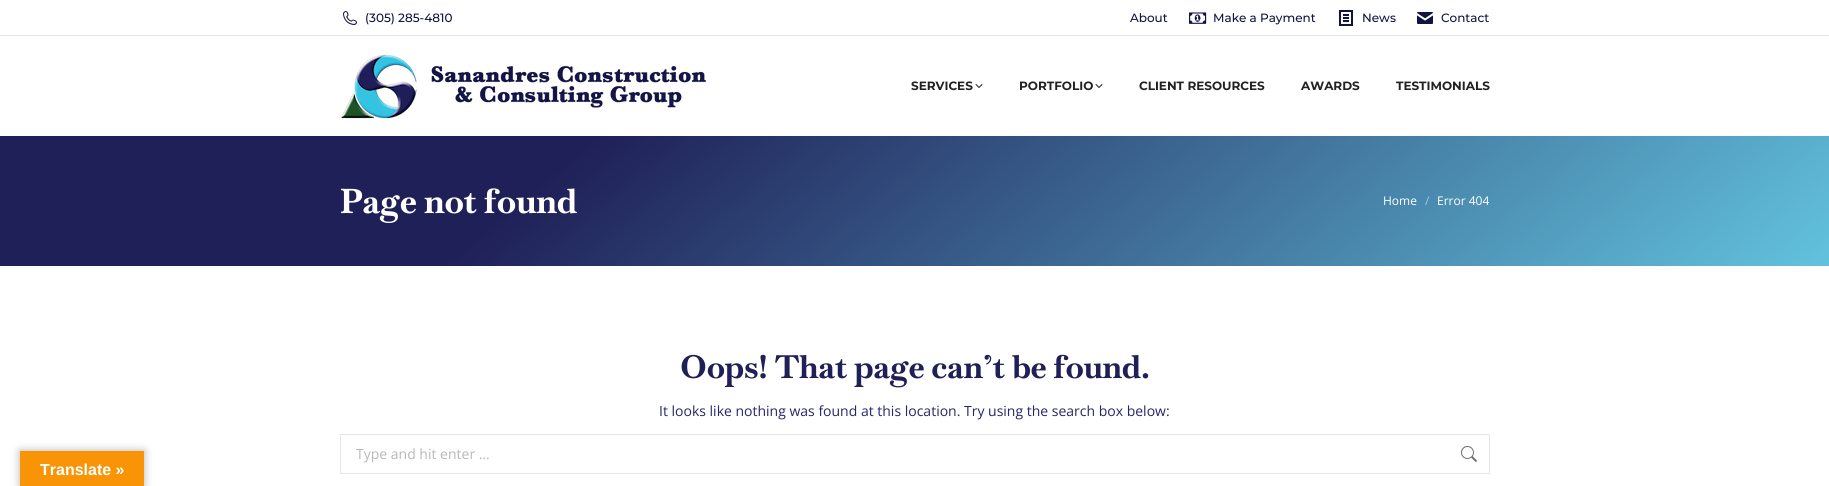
#include <cairo/cairo.h>
#include <math.h>
#include <stddef.h>

typedef struct { double x, y; const char *s; } line_t;
static cairo_t *cr;

static void rgb(unsigned color)
{
	cairo_set_source_rgb(cr, (color >> 16) / 255.0, (color >> 8 & 255) / 255.0, (color & 255) / 255.0);
}

static void rrect(double x, double y, double w, double h, double r)
{
	cairo_new_sub_path(cr);
	cairo_arc(cr, x + w - r, y + h - r, r, 0, M_PI / 2);
	cairo_arc(cr, x + r, y + h - r, r, M_PI / 2, M_PI);
	cairo_arc(cr, x + r, y + r, r, M_PI, 1.5 * M_PI);
	cairo_arc(cr, x + w - r, y + r, r, 1.5 * M_PI, 2 * M_PI);
	cairo_close_path(cr);
}

static void soft_shadow(double x, double y, double w, double h, double r, double blur, double alpha)
{
	cairo_push_group_with_content(cr, CAIRO_CONTENT_ALPHA);
	cairo_set_operator(cr, CAIRO_OPERATOR_SOURCE);
	for (int i = 15; i >= -15 && fmin(w, h) + blur * i / 3 > 0; i -= 2) {
		double e = blur * i / 6;
		cairo_set_source_rgba(cr, 0, 0, 0, alpha * erfc((i - 1) / 8.5) / 2);
		rrect(x - e, y - e, w + 2 * e, h + 2 * e, fmax(0, fmin(r + e + blur * .6, fmin(w, h) / 2 + e)));
		cairo_fill(cr);
	}
	cairo_pattern_t *soft = cairo_pop_group(cr);
	cairo_mask(cr, soft);
	cairo_pattern_destroy(soft);
}

static void image(const char *path, double x, double y, double w, double h)
{
	cairo_surface_t *image = cairo_image_surface_create_from_png(path);
	cairo_save(cr);
	cairo_set_source_surface(cr, image, x, y);
	cairo_rectangle(cr, x, y, w, h);
	cairo_fill(cr);
	cairo_restore(cr);
	cairo_surface_destroy(image);
}

int main(void) {
	cairo_surface_t *surface = cairo_image_surface_create(CAIRO_FORMAT_RGB24, 1829, 486);
	cr = cairo_create(surface);
	cairo_font_options_t *options = cairo_font_options_create();
	cairo_font_options_set_hint_metrics(options, CAIRO_HINT_METRICS_OFF);
	cairo_font_options_set_hint_style(options, CAIRO_HINT_STYLE_NONE);
	cairo_set_font_options(cr, options);
	cairo_set_miter_limit(cr, 4);
	cairo_pattern_t *gradient;
	rgb(0xffffff);
	cairo_paint(cr);
	image("img/1.png", 343, 11, 14, 14);
	image("img/2.png", 1189, 12, 18, 12);
	image("img/3.png", 1339, 10, 14, 16);
	image("img/4.png", 1417, 12, 16, 12);
	rgb(0xe6e6e6);
	cairo_rectangle(cr, 0, 35, 1829, 1);
	cairo_fill(cr);
	image("img/5.png", 341, 54, 365, 65);
	image("img/6.png", 975, 84, 8, 4);
	image("img/6.png", 1095, 84, 8, 4);
	gradient = cairo_pattern_create_linear(505, -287, 1324, 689);
	cairo_pattern_add_color_stop_rgba(gradient, 0.3, 0.122, 0.125, 0.341, 1);
	cairo_pattern_add_color_stop_rgba(gradient, 1, 0.384, 0.761, 0.871, 1);
	cairo_set_source(cr, gradient);
	cairo_pattern_destroy(gradient);
	cairo_rectangle(cr, 0, 136, 1829, 130);
	cairo_fill(cr);
	cairo_rectangle(cr, 340.5, 434.5, 1149, 39);
	rgb(0xe6e6e6);
	cairo_set_line_width(cr, 1);
	cairo_stroke(cr);
	image("img/7.png", 1461, 446, 16, 16);
	rgb(0x000000);
	soft_shadow(20, 451, 124, 35, 0, 4.5, 0.3);
	rgb(0xf89406);
	cairo_rectangle(cr, 20, 451, 124, 35);
	cairo_fill(cr);
	cairo_select_font_face(cr, "Montserrat Medium", CAIRO_FONT_SLANT_NORMAL, CAIRO_FONT_WEIGHT_NORMAL);
	cairo_set_font_size(cr, 12);
	rgb(0x121340);
	{
		static const line_t items[] = {
			{365, 22, "(305) 285-4810"},
			{1130, 22, "About"},
			{1213, 22, "Make a Payment"},
			{1362, 22, "News"},
			{1441, 22, "Contact"},
		};
		for (size_t i = 0; i < sizeof items / sizeof *items; i++) {
			cairo_move_to(cr, items[i].x, items[i].y);
			cairo_show_text(cr, items[i].s);
		}
	}
	cairo_select_font_face(cr, "Montserrat", CAIRO_FONT_SLANT_NORMAL, CAIRO_FONT_WEIGHT_BOLD);
	rgb(0x222222);
	{
		static const line_t items[] = {
			{911, 90, "SERVICES"},
			{1019, 90, "PORTFOLIO"},
			{1139, 90, "CLIENT RESOURCES"},
			{1301, 90, "AWARDS"},
			{1396, 90, "TESTIMONIALS"},
		};
		for (size_t i = 0; i < sizeof items / sizeof *items; i++) {
			cairo_move_to(cr, items[i].x, items[i].y);
			cairo_show_text(cr, items[i].s);
		}
	}
	cairo_select_font_face(cr, "Baskervville", CAIRO_FONT_SLANT_NORMAL, CAIRO_FONT_WEIGHT_BOLD);
	cairo_set_font_size(cr, 34);
	rgb(0xffffff);
	cairo_move_to(cr, 340, 213);
	cairo_show_text(cr, "Page not found");
	cairo_select_font_face(cr, "Open Sans", CAIRO_FONT_SLANT_NORMAL, CAIRO_FONT_WEIGHT_NORMAL);
	cairo_set_font_size(cr, 12);
	cairo_move_to(cr, 1383, 205);
	cairo_show_text(cr, "Home");
	rgb(0xa5c5d7);
	cairo_move_to(cr, 1425, 205);
	cairo_show_text(cr, "/");
	rgb(0xffffff);
	cairo_move_to(cr, 1437, 205);
	cairo_show_text(cr, "Error 404");
	cairo_select_font_face(cr, "Baskervville", CAIRO_FONT_SLANT_NORMAL, CAIRO_FONT_WEIGHT_BOLD);
	cairo_set_font_size(cr, 32);
	rgb(0x201f57);
	cairo_move_to(cr, 680, 378);
	cairo_show_text(cr, "Oops! That page can’t be found.");
	cairo_select_font_face(cr, "Open Sans", CAIRO_FONT_SLANT_NORMAL, CAIRO_FONT_WEIGHT_NORMAL);
	cairo_set_font_size(cr, 14);
	rgb(0x272668);
	cairo_move_to(cr, 659, 416);
	cairo_show_text(cr, "It looks like nothing was found at this location. Try using the search box below:");
	rgb(0xb8b8b8);
	cairo_move_to(cr, 356, 459);
	cairo_show_text(cr, "Type and hit enter …");
	cairo_select_font_face(cr, "Liberation Sans", CAIRO_FONT_SLANT_NORMAL, CAIRO_FONT_WEIGHT_BOLD);
	cairo_set_font_size(cr, 16);
	rgb(0xffffff);
	cairo_move_to(cr, 40, 475);
	cairo_show_text(cr, "Translate »");
	cairo_surface_write_to_png(surface, "page.png");
	cairo_font_options_destroy(options);
	cairo_destroy(cr);
	cairo_surface_destroy(surface);
	return 0;
}
